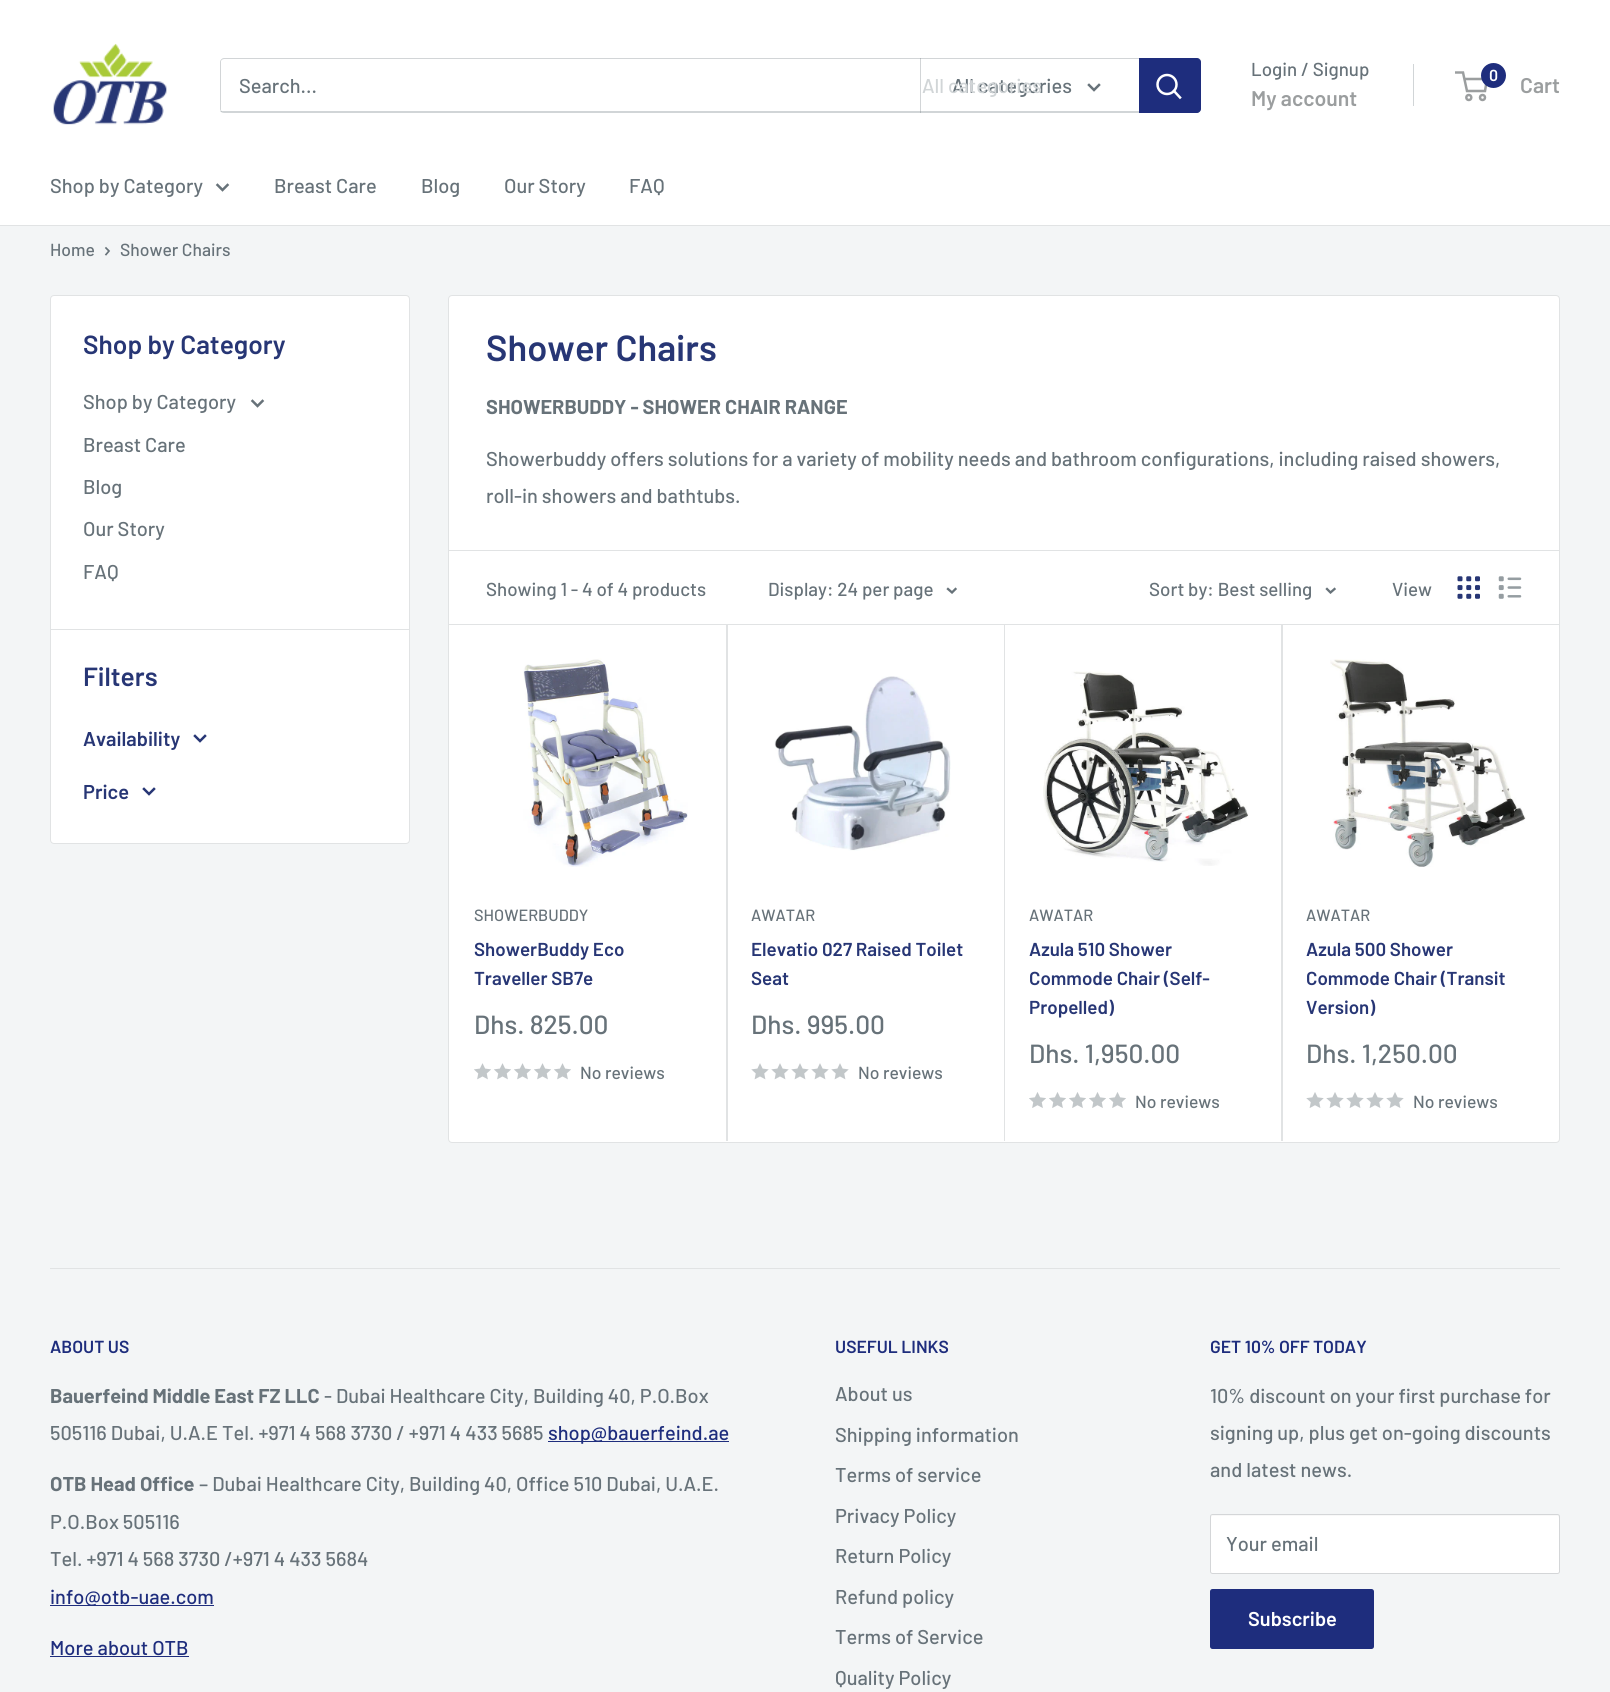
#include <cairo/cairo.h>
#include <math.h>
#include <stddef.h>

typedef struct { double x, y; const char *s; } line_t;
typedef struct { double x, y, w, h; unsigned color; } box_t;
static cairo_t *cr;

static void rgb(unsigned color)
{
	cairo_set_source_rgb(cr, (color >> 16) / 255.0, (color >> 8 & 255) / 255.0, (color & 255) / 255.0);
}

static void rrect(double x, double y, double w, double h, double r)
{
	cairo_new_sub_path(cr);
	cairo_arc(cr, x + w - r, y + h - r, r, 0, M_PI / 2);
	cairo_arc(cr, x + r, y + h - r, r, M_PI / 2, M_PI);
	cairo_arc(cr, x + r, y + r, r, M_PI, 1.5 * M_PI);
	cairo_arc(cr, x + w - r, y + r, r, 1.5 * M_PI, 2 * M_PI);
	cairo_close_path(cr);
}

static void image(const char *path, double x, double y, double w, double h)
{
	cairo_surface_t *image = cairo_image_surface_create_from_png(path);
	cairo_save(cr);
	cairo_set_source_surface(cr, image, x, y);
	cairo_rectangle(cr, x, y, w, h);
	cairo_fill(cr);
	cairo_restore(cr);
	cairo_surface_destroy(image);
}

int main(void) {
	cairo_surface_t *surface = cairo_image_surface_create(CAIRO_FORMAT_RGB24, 1610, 1692);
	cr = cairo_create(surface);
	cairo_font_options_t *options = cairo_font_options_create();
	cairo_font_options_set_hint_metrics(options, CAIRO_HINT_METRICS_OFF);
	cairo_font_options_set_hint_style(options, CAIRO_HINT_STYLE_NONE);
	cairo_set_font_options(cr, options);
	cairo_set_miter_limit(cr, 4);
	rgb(0xf3f5f6);
	cairo_paint(cr);
	rgb(0xffffff);
	cairo_rectangle(cr, 0, 0, 1610, 225);
	cairo_fill(cr);
	image("img/1.png", 53, 43, 114, 82);
	rgb(0xd1d5d7);
	cairo_new_path(cr);
	cairo_move_to(cr, 220, 111);
	cairo_curve_to(cr, 221, 112, 222, 113, 224, 113);
	cairo_line_to(cr, 1197, 113);
	cairo_curve_to(cr, 1199, 113, 1201, 111, 1201, 109);
	cairo_line_to(cr, 1201, 62);
	cairo_curve_to(cr, 1201, 61, 1201, 60, 1200, 59);
	cairo_line_to(cr, 1200, 100);
	cairo_curve_to(cr, 1200, 104, 1202, 111, 1196, 111);
	cairo_close_path(cr);
	cairo_fill(cr);
	cairo_set_source_rgba(cr, 0.404, 0.447, 0.475, 0.3);
	cairo_new_path(cr);
	cairo_move_to(cr, 225, 59);
	cairo_line_to(cr, 1200, 59);
	cairo_curve_to(cr, 1199, 58, 1198, 58, 1197, 58);
	cairo_line_to(cr, 224, 58);
	cairo_curve_to(cr, 222, 58, 220, 60, 220, 62);
	cairo_line_to(cr, 220, 109);
	cairo_curve_to(cr, 220, 110, 221, 112, 222, 112);
	cairo_line_to(cr, 221, 110);
	cairo_line_to(cr, 221, 61);
	cairo_curve_to(cr, 222, 59, 224, 59, 225, 59);
	cairo_close_path(cr);
	cairo_fill(cr);
	cairo_rectangle(cr, 920, 58, 1, 55);
	cairo_fill(cr);
	cairo_new_path(cr);
	cairo_move_to(cr, 1099, 85);
	cairo_line_to(cr, 1094, 90);
	cairo_line_to(cr, 1089, 85);
	rgb(0x677279);
	cairo_set_line_width(cr, 2.5);
	cairo_set_line_cap(cr, CAIRO_LINE_CAP_SQUARE);
	cairo_stroke(cr);
	rgb(0x1e2d7d);
	cairo_new_path(cr);
	cairo_move_to(cr, 1139, 58);
	cairo_line_to(cr, 1197, 58);
	cairo_curve_to(cr, 1199, 58, 1201, 60, 1201, 62);
	cairo_line_to(cr, 1201, 109);
	cairo_curve_to(cr, 1201, 111, 1199, 113, 1197, 113);
	cairo_line_to(cr, 1139, 113);
	cairo_close_path(cr);
	cairo_fill(cr);
	cairo_new_path(cr);
	cairo_move_to(cr, 1180, 97.5);
	cairo_line_to(cr, 1174, 91);
	rgb(0xffffff);
	cairo_stroke(cr);
	cairo_arc(cr, 1167, 84.5, 9.5, 0, 2 * M_PI);
	cairo_set_line_cap(cr, CAIRO_LINE_CAP_BUTT);
	cairo_stroke(cr);
	rgb(0xd1d5d7);
	cairo_rectangle(cr, 1413, 64, 1, 42);
	cairo_fill(cr);
	cairo_arc(cr, 1468.8, 97.5, 2.5, 0, 2 * M_PI);
	rgb(0x9b9e9f);
	cairo_stroke(cr);
	cairo_arc(cr, 1482.5, 97.5, 2.5, 0, 2 * M_PI);
	cairo_stroke(cr);
	cairo_new_path(cr);
	cairo_move_to(cr, 1464, 79);
	cairo_line_to(cr, 1487, 79);
	cairo_line_to(cr, 1485, 91);
	cairo_line_to(cr, 1467, 91);
	cairo_line_to(cr, 1463, 72.5);
	cairo_line_to(cr, 1455, 72.5);
	cairo_stroke(cr);
	rgb(0x1e2d7d);
	cairo_arc(cr, 1493.5, 75.5, 12.5, 0, 2 * M_PI);
	cairo_fill(cr);
	rgb(0xe1e3e4);
	cairo_rectangle(cr, 0, 225, 1610, 1);
	cairo_fill(cr);
	cairo_new_path(cr);
	cairo_move_to(cr, 227.5, 185);
	cairo_line_to(cr, 222.5, 190);
	cairo_line_to(cr, 217.5, 185);
	rgb(0x677279);
	cairo_set_line_cap(cr, CAIRO_LINE_CAP_SQUARE);
	cairo_stroke(cr);
	cairo_new_path(cr);
	cairo_move_to(cr, 106, 248);
	cairo_line_to(cr, 109, 251);
	cairo_line_to(cr, 106, 254.5);
	cairo_set_line_width(cr, 1.7);
	cairo_stroke(cr);
	rgb(0xffffff);
	rrect(50.5, 295.5, 359, 548, 3.5);
	cairo_fill_preserve(cr);
	rgb(0xe1e3e4);
	cairo_set_line_width(cr, 1);
	cairo_set_line_cap(cr, CAIRO_LINE_CAP_BUTT);
	cairo_stroke(cr);
	cairo_new_path(cr);
	cairo_move_to(cr, 262.5, 401);
	cairo_line_to(cr, 257.5, 406);
	cairo_line_to(cr, 252.5, 401);
	rgb(0x677279);
	cairo_set_line_width(cr, 2.5);
	cairo_set_line_cap(cr, CAIRO_LINE_CAP_SQUARE);
	cairo_stroke(cr);
	rgb(0xe1e3e4);
	cairo_rectangle(cr, 51, 629, 358, 1);
	cairo_fill(cr);
	cairo_new_path(cr);
	cairo_move_to(cr, 205, 736);
	cairo_line_to(cr, 200, 741);
	cairo_line_to(cr, 195, 736);
	rgb(0x273675);
	cairo_stroke(cr);
	cairo_new_path(cr);
	cairo_move_to(cr, 154, 789);
	cairo_line_to(cr, 149, 794);
	cairo_line_to(cr, 144, 789);
	cairo_stroke(cr);
	rgb(0xffffff);
	rrect(448.5, 295.5, 1111, 847, 3.5);
	cairo_fill_preserve(cr);
	rgb(0xe1e3e4);
	cairo_set_line_width(cr, 1);
	cairo_set_line_cap(cr, CAIRO_LINE_CAP_BUTT);
	cairo_stroke(cr);
	cairo_new_path(cr);
	cairo_move_to(cr, 449, 550);
	cairo_line_to(cr, 449, 551);
	cairo_line_to(cr, 1559, 551);
	cairo_line_to(cr, 1559, 623);
	cairo_line_to(cr, 1559, 550);
	cairo_close_path(cr);
	cairo_fill(cr);
	{
		static const box_t items[] = {
			{726, 624, 2, 517, 0xe1e3e4},
			{1004, 624, 1, 517, 0xe1e3e4},
			{1281, 624, 2, 517, 0xe1e3e4},
		};
		for (size_t i = 0; i < sizeof items / sizeof *items; i++) {
			rgb(items[i].color);
			cairo_rectangle(cr, items[i].x, items[i].y, items[i].w, items[i].h);
			cairo_fill(cr);
		}
	}
	cairo_new_path(cr);
	cairo_move_to(cr, 449, 624);
	cairo_line_to(cr, 449, 625);
	cairo_line_to(cr, 1559, 625);
	cairo_line_to(cr, 1559, 553);
	cairo_line_to(cr, 1559, 624);
	cairo_close_path(cr);
	cairo_fill(cr);
	cairo_new_path(cr);
	cairo_move_to(cr, 955.5, 589);
	cairo_line_to(cr, 952, 592.5);
	cairo_line_to(cr, 948, 589);
	rgb(0x677279);
	cairo_set_line_width(cr, 2.3);
	cairo_set_line_cap(cr, CAIRO_LINE_CAP_SQUARE);
	cairo_stroke(cr);
	cairo_new_path(cr);
	cairo_move_to(cr, 1334.5, 589);
	cairo_line_to(cr, 1330.5, 592.5);
	cairo_line_to(cr, 1327, 589);
	cairo_stroke(cr);
	image("img/2.png", 1457, 576, 23, 23);
	image("img/3.png", 1498, 576, 24, 23);
	image("img/4.png", 523, 658, 165, 209);
	image("img/5.png", 474, 1063, 17, 17);
	image("img/5.png", 494, 1063, 17, 17);
	image("img/5.png", 514, 1063, 17, 17);
	image("img/5.png", 534, 1063, 17, 17);
	image("img/5.png", 554, 1063, 17, 17);
	image("img/6.png", 774, 676, 177, 175);
	image("img/7.png", 751, 1063, 18, 17);
	image("img/7.png", 771, 1063, 18, 17);
	image("img/7.png", 791, 1063, 18, 17);
	image("img/7.png", 811, 1063, 18, 17);
	image("img/7.png", 831, 1063, 18, 17);
	image("img/8.png", 1043, 671, 206, 195);
	image("img/9.png", 1029, 1092, 17, 16);
	image("img/9.png", 1049, 1092, 17, 16);
	image("img/9.png", 1069, 1092, 17, 16);
	image("img/9.png", 1089, 1092, 17, 16);
	image("img/9.png", 1109, 1092, 17, 16);
	image("img/10.png", 1330, 659, 196, 208);
	image("img/11.png", 1306, 1092, 18, 16);
	image("img/11.png", 1326, 1092, 18, 16);
	image("img/11.png", 1346, 1092, 18, 16);
	image("img/11.png", 1366, 1092, 18, 16);
	image("img/11.png", 1386, 1092, 18, 16);
	{
		static const box_t items[] = {
			{50, 1268, 1510, 1, 0xe1e3e4},
			{548, 1441, 181, 1, 0x1e2d7d},
			{50, 1605, 164, 1, 0x1e2d7d},
			{50, 1656, 139, 1, 0x1e2d7d},
		};
		for (size_t i = 0; i < sizeof items / sizeof *items; i++) {
			rgb(items[i].color);
			cairo_rectangle(cr, items[i].x, items[i].y, items[i].w, items[i].h);
			cairo_fill(cr);
		}
	}
	rgb(0xffffff);
	rrect(1210, 1514, 350, 60, 2.5);
	cairo_fill(cr);
	rgb(0xf8f8f8);
	cairo_new_path(cr);
	cairo_move_to(cr, 1212, 1516);
	cairo_line_to(cr, 1558, 1516);
	cairo_line_to(cr, 1559, 1518);
	cairo_line_to(cr, 1559, 1515);
	cairo_line_to(cr, 1212, 1515);
	cairo_curve_to(cr, 1211, 1515, 1211, 1517, 1211, 1518);
	cairo_close_path(cr);
	cairo_fill(cr);
	rrect(1210.5, 1514.5, 349, 59, 2);
	rgb(0xd4d6d8);
	cairo_set_line_width(cr, 1);
	cairo_set_line_cap(cr, CAIRO_LINE_CAP_BUTT);
	cairo_stroke(cr);
	rgb(0x1e2d7d);
	rrect(1210, 1589, 164, 60, 2.5);
	cairo_fill(cr);
	cairo_select_font_face(cr, "Barlow Medium", CAIRO_FONT_SLANT_NORMAL, CAIRO_FONT_WEIGHT_NORMAL);
	cairo_set_font_size(cr, 20);
	rgb(0x677279);
	cairo_move_to(cr, 239, 93);
	cairo_show_text(cr, "Search...");
	cairo_move_to(cr, 952, 93);
	cairo_show_text(cr, "All categories");
	rgb(0xd1d5d7);
	cairo_move_to(cr, 922, 93);
	cairo_show_text(cr, "All categories");
	cairo_set_font_size(cr, 18.75);
	rgb(0x677279);
	cairo_move_to(cr, 1251, 76);
	cairo_show_text(cr, "Login / Signup");
	cairo_select_font_face(cr, "Barlow SemiBold", CAIRO_FONT_SLANT_NORMAL, CAIRO_FONT_WEIGHT_NORMAL);
	cairo_set_font_size(cr, 21.25);
	rgb(0x9b9e9f);
	cairo_move_to(cr, 1251, 106);
	cairo_show_text(cr, "My account");
	cairo_set_font_size(cr, 16);
	rgb(0xffffff);
	cairo_move_to(cr, 1489, 81);
	cairo_show_text(cr, "0");
	cairo_set_font_size(cr, 21.25);
	rgb(0x9b9e9f);
	cairo_move_to(cr, 1520, 93);
	cairo_show_text(cr, "Cart");
	cairo_select_font_face(cr, "Barlow Medium", CAIRO_FONT_SLANT_NORMAL, CAIRO_FONT_WEIGHT_NORMAL);
	cairo_set_font_size(cr, 20);
	rgb(0x677279);
	{
		static const line_t items[] = {
			{50, 193, "Shop by Category"},
			{274, 193, "Breast Care"},
			{421, 193, "Blog"},
			{504, 193, "Our Story"},
			{629, 193, "FAQ"},
		};
		for (size_t i = 0; i < sizeof items / sizeof *items; i++) {
			cairo_move_to(cr, items[i].x, items[i].y);
			cairo_show_text(cr, items[i].s);
		}
	}
	cairo_set_font_size(cr, 17.5);
	cairo_move_to(cr, 50, 256);
	cairo_show_text(cr, "Home");
	cairo_move_to(cr, 120, 256);
	cairo_show_text(cr, "Shower Chairs");
	cairo_select_font_face(cr, "Barlow SemiBold", CAIRO_FONT_SLANT_NORMAL, CAIRO_FONT_WEIGHT_NORMAL);
	cairo_set_font_size(cr, 26.25);
	rgb(0x273675);
	cairo_move_to(cr, 83, 354);
	cairo_show_text(cr, "Shop by Category");
	cairo_select_font_face(cr, "Barlow Medium", CAIRO_FONT_SLANT_NORMAL, CAIRO_FONT_WEIGHT_NORMAL);
	cairo_set_font_size(cr, 20);
	rgb(0x677279);
	{
		static const line_t items[] = {
			{83, 409, "Shop by Category"},
			{83, 452, "Breast Care"},
			{83, 494, "Blog"},
			{83, 536, "Our Story"},
			{83, 579, "FAQ"},
		};
		for (size_t i = 0; i < sizeof items / sizeof *items; i++) {
			cairo_move_to(cr, items[i].x, items[i].y);
			cairo_show_text(cr, items[i].s);
		}
	}
	cairo_select_font_face(cr, "Barlow SemiBold", CAIRO_FONT_SLANT_NORMAL, CAIRO_FONT_WEIGHT_NORMAL);
	cairo_set_font_size(cr, 26.25);
	rgb(0x273675);
	cairo_move_to(cr, 83, 686);
	cairo_show_text(cr, "Filters");
	cairo_set_font_size(cr, 20);
	cairo_move_to(cr, 83, 746);
	cairo_show_text(cr, "Availability");
	cairo_move_to(cr, 83, 799);
	cairo_show_text(cr, "Price");
	cairo_set_font_size(cr, 36.25);
	cairo_move_to(cr, 486, 361);
	cairo_show_text(cr, "Shower Chairs");
	cairo_select_font_face(cr, "Barlow", CAIRO_FONT_SLANT_NORMAL, CAIRO_FONT_WEIGHT_BOLD);
	cairo_set_font_size(cr, 20);
	rgb(0x677279);
	cairo_move_to(cr, 486, 414);
	cairo_show_text(cr, "SHOWERBUDDY - SHOWER CHAIR RANGE");
	cairo_select_font_face(cr, "Barlow Medium", CAIRO_FONT_SLANT_NORMAL, CAIRO_FONT_WEIGHT_NORMAL);
	cairo_move_to(cr, 486, 466);
	cairo_show_text(cr, "Showerbuddy offers solutions for a variety of mobility needs and bathroom configurations, including raised showers,");
	cairo_move_to(cr, 486, 503);
	cairo_show_text(cr, "roll-in showers and bathtubs.");
	cairo_set_font_size(cr, 18.75);
	{
		static const line_t items[] = {
			{486, 596, "Showing 1 - 4 of 4 products"},
			{768, 596, "Display: 24 per page"},
			{1149, 596, "Sort by: Best selling"},
			{1392, 596, "View"},
		};
		for (size_t i = 0; i < sizeof items / sizeof *items; i++) {
			cairo_move_to(cr, items[i].x, items[i].y);
			cairo_show_text(cr, items[i].s);
		}
	}
	cairo_set_font_size(cr, 16.25);
	cairo_move_to(cr, 474, 921);
	cairo_show_text(cr, "SHOWERBUDDY");
	cairo_select_font_face(cr, "Barlow SemiBold", CAIRO_FONT_SLANT_NORMAL, CAIRO_FONT_WEIGHT_NORMAL);
	cairo_set_font_size(cr, 18.75);
	rgb(0x273675);
	cairo_move_to(cr, 474, 956);
	cairo_show_text(cr, "ShowerBuddy Eco");
	cairo_move_to(cr, 474, 985);
	cairo_show_text(cr, "Traveller SB7e");
	cairo_select_font_face(cr, "Barlow Medium", CAIRO_FONT_SLANT_NORMAL, CAIRO_FONT_WEIGHT_NORMAL);
	cairo_set_font_size(cr, 26.25);
	rgb(0x677279);
	cairo_move_to(cr, 474, 1034);
	cairo_show_text(cr, "Dhs. 825.00");
	cairo_set_font_size(cr, 17.5);
	cairo_move_to(cr, 580, 1079);
	cairo_show_text(cr, "No reviews");
	cairo_set_font_size(cr, 16.25);
	cairo_move_to(cr, 751, 921);
	cairo_show_text(cr, "AWATAR");
	cairo_select_font_face(cr, "Barlow SemiBold", CAIRO_FONT_SLANT_NORMAL, CAIRO_FONT_WEIGHT_NORMAL);
	cairo_set_font_size(cr, 18.75);
	rgb(0x273675);
	cairo_move_to(cr, 751, 956);
	cairo_show_text(cr, "Elevatio 027 Raised Toilet");
	cairo_move_to(cr, 751, 985);
	cairo_show_text(cr, "Seat");
	cairo_select_font_face(cr, "Barlow Medium", CAIRO_FONT_SLANT_NORMAL, CAIRO_FONT_WEIGHT_NORMAL);
	cairo_set_font_size(cr, 26.25);
	rgb(0x677279);
	cairo_move_to(cr, 751, 1034);
	cairo_show_text(cr, "Dhs. 995.00");
	cairo_set_font_size(cr, 17.5);
	cairo_move_to(cr, 858, 1079);
	cairo_show_text(cr, "No reviews");
	cairo_set_font_size(cr, 16.25);
	cairo_move_to(cr, 1029, 921);
	cairo_show_text(cr, "AWATAR");
	cairo_select_font_face(cr, "Barlow SemiBold", CAIRO_FONT_SLANT_NORMAL, CAIRO_FONT_WEIGHT_NORMAL);
	cairo_set_font_size(cr, 18.75);
	rgb(0x273675);
	{
		static const line_t items[] = {
			{1029, 956, "Azula 510 Shower"},
			{1029, 985, "Commode Chair (Self-"},
			{1029, 1014, "Propelled)"},
		};
		for (size_t i = 0; i < sizeof items / sizeof *items; i++) {
			cairo_move_to(cr, items[i].x, items[i].y);
			cairo_show_text(cr, items[i].s);
		}
	}
	cairo_select_font_face(cr, "Barlow Medium", CAIRO_FONT_SLANT_NORMAL, CAIRO_FONT_WEIGHT_NORMAL);
	cairo_set_font_size(cr, 26.25);
	rgb(0x677279);
	cairo_move_to(cr, 1029, 1063);
	cairo_show_text(cr, "Dhs. 1,950.00");
	cairo_set_font_size(cr, 17.5);
	cairo_move_to(cr, 1135, 1108);
	cairo_show_text(cr, "No reviews");
	cairo_set_font_size(cr, 16.25);
	cairo_move_to(cr, 1306, 921);
	cairo_show_text(cr, "AWATAR");
	cairo_select_font_face(cr, "Barlow SemiBold", CAIRO_FONT_SLANT_NORMAL, CAIRO_FONT_WEIGHT_NORMAL);
	cairo_set_font_size(cr, 18.75);
	rgb(0x273675);
	{
		static const line_t items[] = {
			{1306, 956, "Azula 500 Shower"},
			{1306, 985, "Commode Chair (Transit"},
			{1306, 1014, "Version)"},
		};
		for (size_t i = 0; i < sizeof items / sizeof *items; i++) {
			cairo_move_to(cr, items[i].x, items[i].y);
			cairo_show_text(cr, items[i].s);
		}
	}
	cairo_select_font_face(cr, "Barlow Medium", CAIRO_FONT_SLANT_NORMAL, CAIRO_FONT_WEIGHT_NORMAL);
	cairo_set_font_size(cr, 26.25);
	rgb(0x677279);
	cairo_move_to(cr, 1306, 1063);
	cairo_show_text(cr, "Dhs. 1,250.00");
	cairo_set_font_size(cr, 17.5);
	cairo_move_to(cr, 1413, 1108);
	cairo_show_text(cr, "No reviews");
	cairo_select_font_face(cr, "Barlow SemiBold", CAIRO_FONT_SLANT_NORMAL, CAIRO_FONT_WEIGHT_NORMAL);
	rgb(0x1e2d7d);
	cairo_move_to(cr, 50, 1353);
	cairo_show_text(cr, "ABOUT US");
	cairo_select_font_face(cr, "Barlow", CAIRO_FONT_SLANT_NORMAL, CAIRO_FONT_WEIGHT_BOLD);
	cairo_set_font_size(cr, 20);
	rgb(0x677279);
	cairo_move_to(cr, 50, 1403);
	cairo_show_text(cr, "Bauerfeind Middle East FZ LLC");
	cairo_select_font_face(cr, "Barlow Medium", CAIRO_FONT_SLANT_NORMAL, CAIRO_FONT_WEIGHT_NORMAL);
	cairo_move_to(cr, 324, 1403);
	cairo_show_text(cr, "- Dubai Healthcare City, Building 40, P.O.Box");
	cairo_move_to(cr, 50, 1440);
	cairo_show_text(cr, "505116 Dubai, U.A.E Tel. +971 4 568 3730 / +971 4 433 5685");
	rgb(0x1e2d7d);
	cairo_move_to(cr, 548, 1440);
	cairo_show_text(cr, "shop@bauerfeind.ae");
	cairo_select_font_face(cr, "Barlow", CAIRO_FONT_SLANT_NORMAL, CAIRO_FONT_WEIGHT_BOLD);
	rgb(0x677279);
	cairo_move_to(cr, 50, 1491);
	cairo_show_text(cr, "OTB Head Office");
	cairo_select_font_face(cr, "Barlow Medium", CAIRO_FONT_SLANT_NORMAL, CAIRO_FONT_WEIGHT_NORMAL);
	{
		static const line_t items[] = {
			{199, 1491, "– Dubai Healthcare City, Building 40, Office 510 Dubai, U.A.E."},
			{50, 1529, "P.O.Box 505116"},
			{50, 1566, "Tel. +971 4 568 3730 /+971 4 433 5684"},
		};
		for (size_t i = 0; i < sizeof items / sizeof *items; i++) {
			cairo_move_to(cr, items[i].x, items[i].y);
			cairo_show_text(cr, items[i].s);
		}
	}
	rgb(0x1e2d7d);
	cairo_move_to(cr, 50, 1604);
	cairo_show_text(cr, "info@otb-uae.com");
	cairo_move_to(cr, 50, 1655);
	cairo_show_text(cr, "More about OTB");
	cairo_select_font_face(cr, "Barlow SemiBold", CAIRO_FONT_SLANT_NORMAL, CAIRO_FONT_WEIGHT_NORMAL);
	cairo_set_font_size(cr, 17.5);
	cairo_move_to(cr, 835, 1353);
	cairo_show_text(cr, "USEFUL LINKS");
	cairo_select_font_face(cr, "Barlow Medium", CAIRO_FONT_SLANT_NORMAL, CAIRO_FONT_WEIGHT_NORMAL);
	cairo_set_font_size(cr, 20);
	rgb(0x677279);
	{
		static const line_t items[] = {
			{835, 1401, "About us"},
			{835, 1442, "Shipping information"},
			{835, 1482, "Terms of service"},
			{835, 1523, "Privacy Policy"},
			{835, 1563, "Return Policy"},
			{835, 1604, "Refund policy"},
			{835, 1644, "Terms of Service"},
			{835, 1685, "Quality Policy"},
		};
		for (size_t i = 0; i < sizeof items / sizeof *items; i++) {
			cairo_move_to(cr, items[i].x, items[i].y);
			cairo_show_text(cr, items[i].s);
		}
	}
	cairo_select_font_face(cr, "Barlow SemiBold", CAIRO_FONT_SLANT_NORMAL, CAIRO_FONT_WEIGHT_NORMAL);
	cairo_set_font_size(cr, 17.5);
	rgb(0x1e2d7d);
	cairo_move_to(cr, 1210, 1353);
	cairo_show_text(cr, "GET 10% OFF TODAY");
	cairo_select_font_face(cr, "Barlow Medium", CAIRO_FONT_SLANT_NORMAL, CAIRO_FONT_WEIGHT_NORMAL);
	cairo_set_font_size(cr, 20);
	rgb(0x677279);
	{
		static const line_t items[] = {
			{1210, 1403, "10% discount on your first purchase for"},
			{1210, 1440, "signing up, plus get on-going discounts"},
			{1210, 1477, "and latest news."},
			{1226, 1551, "Your email"},
		};
		for (size_t i = 0; i < sizeof items / sizeof *items; i++) {
			cairo_move_to(cr, items[i].x, items[i].y);
			cairo_show_text(cr, items[i].s);
		}
	}
	cairo_select_font_face(cr, "Barlow SemiBold", CAIRO_FONT_SLANT_NORMAL, CAIRO_FONT_WEIGHT_NORMAL);
	rgb(0xffffff);
	cairo_move_to(cr, 1248, 1626);
	cairo_show_text(cr, "Subscribe");
	cairo_surface_write_to_png(surface, "page.png");
	cairo_font_options_destroy(options);
	cairo_destroy(cr);
	cairo_surface_destroy(surface);
	return 0;
}
